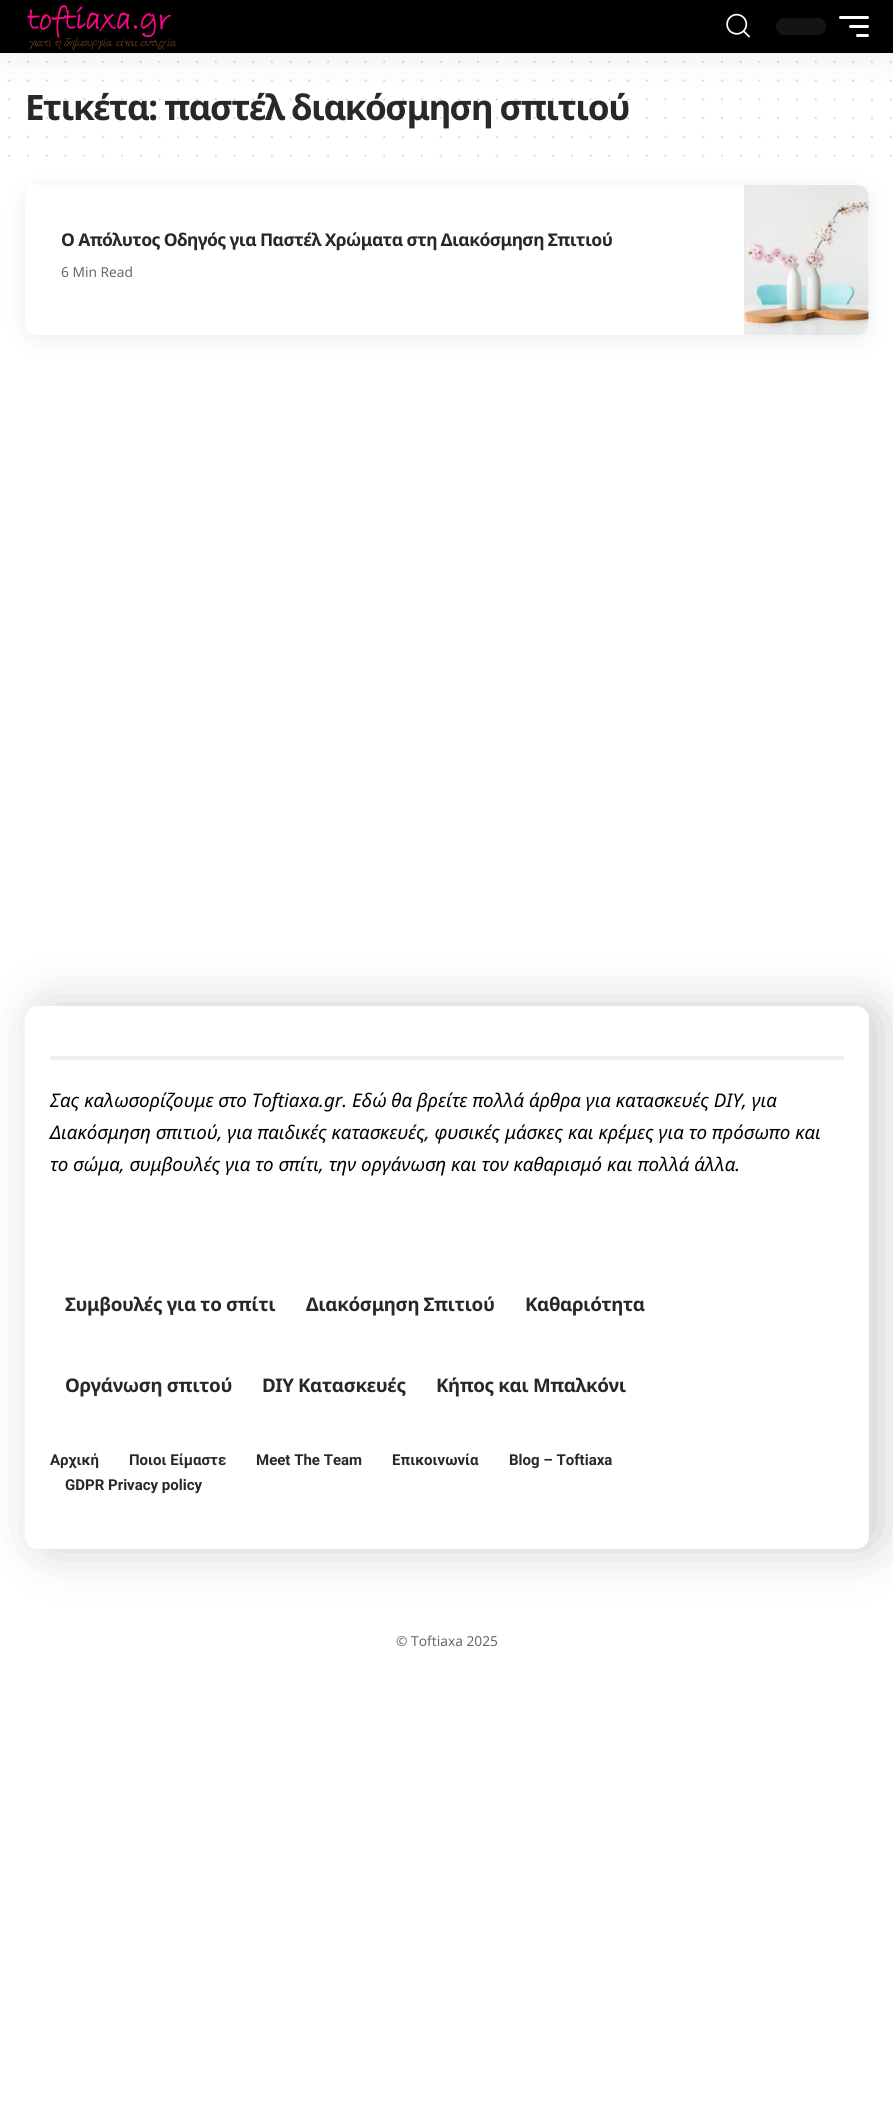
#include <cairo/cairo.h>
#include <math.h>
#include <stddef.h>

typedef struct { double x, y; const char *s; } line_t;
static cairo_t *cr;

static void rgb(unsigned color)
{
	cairo_set_source_rgb(cr, (color >> 16) / 255.0, (color >> 8 & 255) / 255.0, (color & 255) / 255.0);
}

static void tracked(double x, double y, const char *s, double letter, double word)
{
	cairo_move_to(cr, x, y);
	while (*s) {
		char ch[5] = {0};
		int n = 0;
		do ch[n++] = *s++; while ((*s & 0xC0) == 0x80);
		cairo_show_text(cr, ch);
		cairo_rel_move_to(cr, letter + word * (*ch == ' '), 0);
	}
}

static void rrect(double x, double y, double w, double h, double r)
{
	cairo_new_sub_path(cr);
	cairo_arc(cr, x + w - r, y + h - r, r, 0, M_PI / 2);
	cairo_arc(cr, x + r, y + h - r, r, M_PI / 2, M_PI);
	cairo_arc(cr, x + r, y + r, r, M_PI, 1.5 * M_PI);
	cairo_arc(cr, x + w - r, y + r, r, 1.5 * M_PI, 2 * M_PI);
	cairo_close_path(cr);
}

static void soft_shadow(double x, double y, double w, double h, double r, double blur, double alpha)
{
	cairo_push_group_with_content(cr, CAIRO_CONTENT_ALPHA);
	cairo_set_operator(cr, CAIRO_OPERATOR_SOURCE);
	for (int i = 15; i >= -15 && fmin(w, h) + blur * i / 3 > 0; i -= 2) {
		double e = blur * i / 6;
		cairo_set_source_rgba(cr, 0, 0, 0, alpha * erfc((i - 1) / 8.5) / 2);
		rrect(x - e, y - e, w + 2 * e, h + 2 * e, fmax(0, fmin(r + e + blur * .6, fmin(w, h) / 2 + e)));
		cairo_fill(cr);
	}
	cairo_pattern_t *soft = cairo_pop_group(cr);
	cairo_mask(cr, soft);
	cairo_pattern_destroy(soft);
}

static void image(const char *path, double x, double y, double w, double h)
{
	cairo_surface_t *image = cairo_image_surface_create_from_png(path);
	cairo_save(cr);
	cairo_set_source_surface(cr, image, x, y);
	cairo_rectangle(cr, x, y, w, h);
	cairo_fill(cr);
	cairo_restore(cr);
	cairo_surface_destroy(image);
}

int main(void) {
	cairo_surface_t *surface = cairo_image_surface_create(CAIRO_FORMAT_RGB24, 893, 2118);
	cr = cairo_create(surface);
	cairo_font_options_t *options = cairo_font_options_create();
	cairo_font_options_set_hint_metrics(options, CAIRO_HINT_METRICS_OFF);
	cairo_font_options_set_hint_style(options, CAIRO_HINT_STYLE_NONE);
	cairo_set_font_options(cr, options);
	cairo_set_miter_limit(cr, 4);
	rgb(0xffffff);
	cairo_paint(cr);
	cairo_new_path(cr);
	cairo_move_to(cr, 9.4, 61.9);
	cairo_line_to(cr, 890.9, 61.9);
	rgb(0xdfdfdf);
	cairo_set_line_width(cr, 2.5);
	cairo_set_line_cap(cr, CAIRO_LINE_CAP_ROUND);
	cairo_set_dash(cr, (double[]){0, 18.75}, 2, 0);
	cairo_stroke(cr);
	cairo_new_path(cr);
	cairo_move_to(cr, 9.4, 80.6);
	cairo_line_to(cr, 890.9, 80.6);
	cairo_stroke(cr);
	cairo_new_path(cr);
	cairo_move_to(cr, 9.4, 136.9);
	cairo_line_to(cr, 890.9, 136.9);
	cairo_stroke(cr);
	rgb(0x000000);
	soft_shadow(25, 190, 844, 150, 11, 12.5, 0.07);
	cairo_new_path(cr);
	cairo_move_to(cr, 9.4, 155.6);
	cairo_line_to(cr, 890.9, 155.6);
	rgb(0xdfdfdf);
	cairo_stroke(cr);
	rgb(0xffffff);
	rrect(25, 185, 844, 150, 11);
	cairo_fill(cr);
	image("img/3.png", 744, 185, 125, 150);
	rgb(0x000000);
	soft_shadow(38, 1006, 843, 543, 13, 25, 0.2);
	rgb(0xffffff);
	rrect(25, 1006, 844, 543, 13);
	cairo_fill(cr);
	rgb(0xefefef);
	cairo_rectangle(cr, 50, 1056, 794, 4);
	cairo_fill(cr);
	cairo_select_font_face(cr, "Noto Sans", CAIRO_FONT_SLANT_NORMAL, CAIRO_FONT_WEIGHT_BOLD);
	cairo_set_font_size(cr, 35);
	rgb(0x282828);
	tracked(25, 120, "Ετικέτα: παστέλ διακόσμηση σπιτιού", -1.55, 0);
	cairo_new_path(cr);
	cairo_move_to(cr, 9.4, 99.4);
	cairo_line_to(cr, 890.9, 99.4);
	cairo_set_source_rgba(cr, 0.157, 0.157, 0.157, 0.15);
	cairo_stroke(cr);
	rgb(0x000000);
	soft_shadow(0, 5, 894, 53, 0, 19, 0.07);
	rgb(0x000000);
	cairo_rectangle(cr, 0, 0, 893, 53);
	cairo_fill(cr);
	rgb(0xffffff);
	rrect(856, 34, 13, 3, 1.5);
	cairo_fill(cr);
	rrect(849, 25, 20, 3, 1.5);
	cairo_fill(cr);
	rrect(839, 16, 30, 3, 1.5);
	cairo_fill(cr);
	rgb(0x141414);
	rrect(776, 18, 50, 17, 8.5);
	cairo_fill(cr);
	image("img/2.png", 726, 13, 24, 25);
	image("img/1.png", 27, 4, 150, 47);
	cairo_new_path(cr);
	cairo_move_to(cr, 9.4, 118.1);
	cairo_line_to(cr, 890.9, 118.1);
	cairo_set_source_rgba(cr, 0.157, 0.157, 0.157, 0.15);
	cairo_stroke(cr);
	cairo_set_font_size(cr, 17.5);
	rgb(0x282828);
	tracked(61, 246, "Ο Απόλυτος Οδηγός για Παστέλ Χρώματα στη Διακόσμηση Σπιτιού", -0.62, 0);
	cairo_select_font_face(cr, "Noto Sans", CAIRO_FONT_SLANT_NORMAL, CAIRO_FONT_WEIGHT_NORMAL);
	cairo_set_font_size(cr, 13.75);
	rgb(0x696969);
	cairo_move_to(cr, 61, 277);
	cairo_show_text(cr, "6 Min Read");
	cairo_select_font_face(cr, "Noto Sans", CAIRO_FONT_SLANT_ITALIC, CAIRO_FONT_WEIGHT_NORMAL);
	cairo_set_font_size(cr, 18.75);
	rgb(0x000000);
	{
		static const line_t items[] = {
			{50, 1107, "Σας καλωσορίζουμε στο Toftiaxa.gr. Εδώ θα βρείτε πολλά άρθρα για κατασκευές DIY, για"},
			{50, 1139, "Διακόσμηση σπιτιού, για παιδικές κατασκευές, φυσικές μάσκες και κρέμες για το πρόσωπο και"},
			{50, 1171, "το σώμα, συμβουλές για το σπίτι, την οργάνωση και τον καθαρισμό και πολλά άλλα."},
		};
		for (size_t i = 0; i < sizeof items / sizeof *items; i++) {
			cairo_move_to(cr, items[i].x, items[i].y);
			cairo_show_text(cr, items[i].s);
		}
	}
	cairo_select_font_face(cr, "Noto Sans", CAIRO_FONT_SLANT_NORMAL, CAIRO_FONT_WEIGHT_BOLD);
	rgb(0x282828);
	{
		static const line_t items[] = {
			{65, 1311, "Συμβουλές για το σπίτι"},
			{306, 1311, "Διακόσμηση Σπιτιού"},
			{525, 1311, "Καθαριότητα"},
			{65, 1392, "Οργάνωση σπιτού"},
			{262, 1392, "DIY Κατασκευές"},
			{436, 1392, "Κήπος και Μπαλκόνι"},
		};
		for (size_t i = 0; i < sizeof items / sizeof *items; i++) {
			tracked(items[i].x, items[i].y, items[i].s, -0.4, 0);
		}
	}
	cairo_select_font_face(cr, "Roboto", CAIRO_FONT_SLANT_NORMAL, CAIRO_FONT_WEIGHT_BOLD);
	cairo_set_font_size(cr, 15);
	{
		static const line_t items[] = {
			{50, 1465, "Αρχική"},
			{129, 1465, "Ποιοι Είμαστε"},
			{256, 1465, "Meet The Team"},
			{392, 1465, "Επικοινωνία"},
			{509, 1465, "Blog – Toftiaxa"},
			{65, 1490, "GDPR Privacy policy"},
		};
		for (size_t i = 0; i < sizeof items / sizeof *items; i++) {
			cairo_move_to(cr, items[i].x, items[i].y);
			cairo_show_text(cr, items[i].s);
		}
	}
	cairo_select_font_face(cr, "Noto Sans", CAIRO_FONT_SLANT_NORMAL, CAIRO_FONT_WEIGHT_NORMAL);
	cairo_set_font_size(cr, 13.75);
	rgb(0x696969);
	cairo_move_to(cr, 396, 1646);
	cairo_show_text(cr, "© Toftiaxa 2025");
	cairo_surface_write_to_png(surface, "page.png");
	cairo_font_options_destroy(options);
	cairo_destroy(cr);
	cairo_surface_destroy(surface);
	return 0;
}
